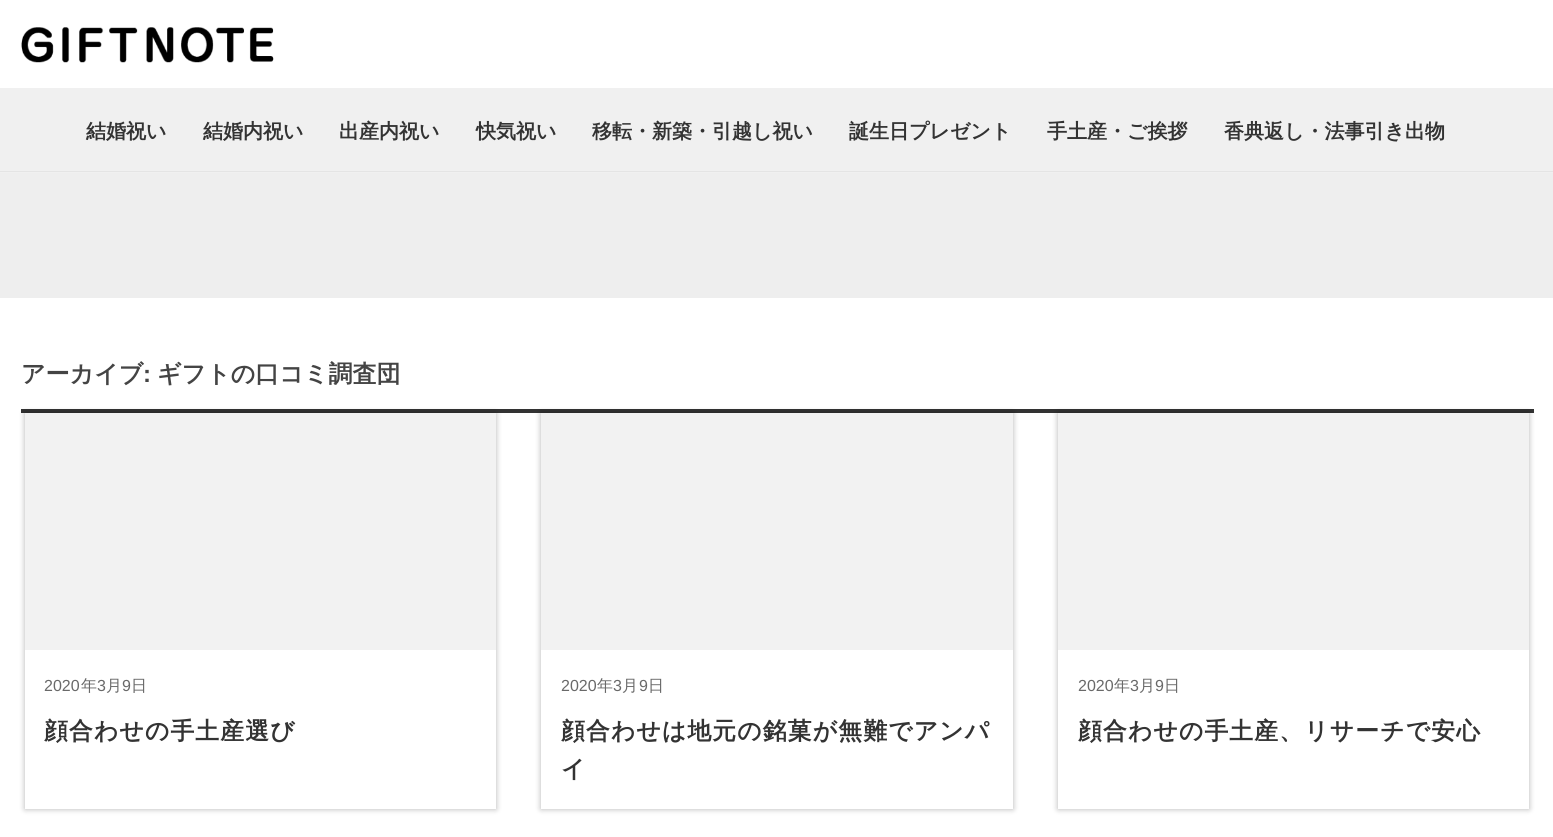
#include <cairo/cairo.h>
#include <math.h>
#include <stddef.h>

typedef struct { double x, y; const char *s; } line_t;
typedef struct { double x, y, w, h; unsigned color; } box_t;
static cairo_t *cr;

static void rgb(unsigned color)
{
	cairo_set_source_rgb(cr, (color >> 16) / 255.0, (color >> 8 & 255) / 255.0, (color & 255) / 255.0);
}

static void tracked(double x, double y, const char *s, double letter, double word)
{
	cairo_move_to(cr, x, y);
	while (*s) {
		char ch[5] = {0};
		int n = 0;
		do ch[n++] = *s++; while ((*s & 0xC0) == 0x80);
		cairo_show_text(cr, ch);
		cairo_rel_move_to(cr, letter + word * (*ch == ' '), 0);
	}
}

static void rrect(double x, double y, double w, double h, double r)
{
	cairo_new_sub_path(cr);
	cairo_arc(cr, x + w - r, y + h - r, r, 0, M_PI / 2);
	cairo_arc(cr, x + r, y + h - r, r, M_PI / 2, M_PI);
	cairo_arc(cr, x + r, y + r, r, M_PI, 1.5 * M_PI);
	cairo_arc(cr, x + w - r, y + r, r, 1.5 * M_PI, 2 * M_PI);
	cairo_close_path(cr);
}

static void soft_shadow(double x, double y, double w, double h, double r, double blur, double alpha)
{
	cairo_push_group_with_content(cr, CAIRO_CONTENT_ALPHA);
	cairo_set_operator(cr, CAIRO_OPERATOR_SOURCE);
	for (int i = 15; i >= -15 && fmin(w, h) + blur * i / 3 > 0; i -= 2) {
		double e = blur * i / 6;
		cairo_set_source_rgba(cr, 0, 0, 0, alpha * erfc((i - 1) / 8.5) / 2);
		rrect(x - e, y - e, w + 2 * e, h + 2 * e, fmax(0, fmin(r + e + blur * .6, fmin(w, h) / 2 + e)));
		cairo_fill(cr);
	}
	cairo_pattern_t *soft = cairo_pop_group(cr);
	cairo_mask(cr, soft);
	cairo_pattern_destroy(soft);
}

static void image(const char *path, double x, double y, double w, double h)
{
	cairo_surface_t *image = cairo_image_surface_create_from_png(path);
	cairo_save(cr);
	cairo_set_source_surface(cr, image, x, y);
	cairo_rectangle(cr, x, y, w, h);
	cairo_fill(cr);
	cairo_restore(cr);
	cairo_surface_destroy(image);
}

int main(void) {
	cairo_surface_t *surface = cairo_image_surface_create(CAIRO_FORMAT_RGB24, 1553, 837);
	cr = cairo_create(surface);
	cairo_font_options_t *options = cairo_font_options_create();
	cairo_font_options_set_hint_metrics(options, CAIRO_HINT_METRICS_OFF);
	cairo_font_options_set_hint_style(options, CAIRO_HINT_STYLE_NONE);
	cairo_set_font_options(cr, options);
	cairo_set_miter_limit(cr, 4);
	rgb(0xffffff);
	cairo_paint(cr);
	cairo_save(cr);
	cairo_set_fill_rule(cr, CAIRO_FILL_RULE_EVEN_ODD);
	cairo_new_path(cr);
	cairo_move_to(cr, 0, 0);
	cairo_line_to(cr, 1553, 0);
	cairo_line_to(cr, 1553, 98);
	cairo_line_to(cr, 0, 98);
	cairo_close_path(cr);
	cairo_move_to(cr, 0, 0);
	cairo_line_to(cr, 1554, 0);
	cairo_line_to(cr, 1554, 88);
	cairo_line_to(cr, 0, 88);
	cairo_close_path(cr);
	cairo_clip(cr);
	rgb(0x000000);
	soft_shadow(4, 5, 1546, 80, 0, 4, 0.3);
	cairo_restore(cr);
	image("img/1.png", 21, 27, 253, 36);
	{
		static const box_t items[] = {
			{0, 88, 1553, 85, 0xf0f0f0},
			{0, 171, 1553, 1, 0xe4e4e4},
			{0, 173, 1553, 125, 0xeeeeee},
			{21, 409, 1513, 4, 0x333333},
		};
		for (size_t i = 0; i < sizeof items / sizeof *items; i++) {
			rgb(items[i].color);
			cairo_rectangle(cr, items[i].x, items[i].y, items[i].w, items[i].h);
			cairo_fill(cr);
		}
	}
	cairo_save(cr);
	cairo_set_fill_rule(cr, CAIRO_FILL_RULE_EVEN_ODD);
	cairo_new_path(cr);
	cairo_move_to(cr, 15, 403);
	cairo_line_to(cr, 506, 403);
	cairo_line_to(cr, 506, 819);
	cairo_line_to(cr, 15, 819);
	cairo_close_path(cr);
	cairo_move_to(cr, 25, 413);
	cairo_line_to(cr, 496, 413);
	cairo_line_to(cr, 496, 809);
	cairo_line_to(cr, 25, 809);
	cairo_close_path(cr);
	cairo_clip(cr);
	rgb(0x000000);
	soft_shadow(25, 413, 471, 396, 0, 3, 0.3);
	cairo_restore(cr);
	rgb(0xf2f2f2);
	cairo_rectangle(cr, 25, 413, 471, 237);
	cairo_fill(cr);
	rgb(0x000000);
	soft_shadow(541, 413, 472, 396, 0, 3, 0.3);
	rgb(0xffffff);
	cairo_rectangle(cr, 541, 650, 472, 159);
	cairo_fill(cr);
	rgb(0xf2f2f2);
	cairo_rectangle(cr, 541, 413, 472, 237);
	cairo_fill(cr);
	cairo_save(cr);
	cairo_set_fill_rule(cr, CAIRO_FILL_RULE_EVEN_ODD);
	cairo_new_path(cr);
	cairo_move_to(cr, 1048, 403);
	cairo_line_to(cr, 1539, 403);
	cairo_line_to(cr, 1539, 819);
	cairo_line_to(cr, 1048, 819);
	cairo_close_path(cr);
	cairo_move_to(cr, 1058, 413);
	cairo_line_to(cr, 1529, 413);
	cairo_line_to(cr, 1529, 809);
	cairo_line_to(cr, 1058, 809);
	cairo_close_path(cr);
	cairo_clip(cr);
	rgb(0x000000);
	soft_shadow(1058, 413, 471, 396, 0, 3, 0.3);
	cairo_restore(cr);
	rgb(0xffffff);
	cairo_rectangle(cr, 1528, 650, 1, 120);
	cairo_fill(cr);
	rgb(0xf2f2f2);
	cairo_rectangle(cr, 1058, 413, 471, 237);
	cairo_fill(cr);
	cairo_select_font_face(cr, "WenQuanYi Zen Hei", CAIRO_FONT_SLANT_NORMAL, CAIRO_FONT_WEIGHT_BOLD);
	cairo_set_font_size(cr, 20);
	rgb(0x333333);
	{
		static const line_t items[] = {
			{86, 138, "結婚祝い"},
			{203, 138, "結婚内祝い"},
			{339, 138, "出産内祝い"},
			{476, 138, "快気祝い"},
			{592, 138, "移転・新築・引越し祝い"},
			{849, 138, "誕生日プレゼント"},
			{1047, 138, "手土産・ご挨拶"},
			{1224, 138, "香典返し・法事引き出物"},
		};
		for (size_t i = 0; i < sizeof items / sizeof *items; i++) {
			cairo_move_to(cr, items[i].x, items[i].y);
			cairo_show_text(cr, items[i].s);
		}
	}
	cairo_set_font_size(cr, 24);
	rgb(0x444444);
	cairo_move_to(cr, 21, 382);
	cairo_show_text(cr, "アーカイブ");
	cairo_select_font_face(cr, "Liberation Sans", CAIRO_FONT_SLANT_NORMAL, CAIRO_FONT_WEIGHT_BOLD);
	cairo_move_to(cr, 143, 382);
	cairo_show_text(cr, ":");
	cairo_select_font_face(cr, "WenQuanYi Zen Hei", CAIRO_FONT_SLANT_NORMAL, CAIRO_FONT_WEIGHT_BOLD);
	cairo_move_to(cr, 157, 382);
	cairo_show_text(cr, "ギフトの口コミ調査団");
	cairo_select_font_face(cr, "Liberation Sans", CAIRO_FONT_SLANT_NORMAL, CAIRO_FONT_WEIGHT_NORMAL);
	cairo_set_font_size(cr, 16);
	rgb(0x696969);
	cairo_move_to(cr, 44, 691);
	cairo_show_text(cr, "2020");
	cairo_select_font_face(cr, "WenQuanYi Zen Hei Medium", CAIRO_FONT_SLANT_NORMAL, CAIRO_FONT_WEIGHT_NORMAL);
	cairo_move_to(cr, 81, 691);
	cairo_show_text(cr, "年");
	cairo_select_font_face(cr, "Liberation Sans", CAIRO_FONT_SLANT_NORMAL, CAIRO_FONT_WEIGHT_NORMAL);
	cairo_move_to(cr, 97, 691);
	cairo_show_text(cr, "3");
	cairo_select_font_face(cr, "WenQuanYi Zen Hei Medium", CAIRO_FONT_SLANT_NORMAL, CAIRO_FONT_WEIGHT_NORMAL);
	cairo_move_to(cr, 106, 691);
	cairo_show_text(cr, "月");
	cairo_select_font_face(cr, "Liberation Sans", CAIRO_FONT_SLANT_NORMAL, CAIRO_FONT_WEIGHT_NORMAL);
	cairo_move_to(cr, 122, 691);
	cairo_show_text(cr, "9");
	cairo_select_font_face(cr, "WenQuanYi Zen Hei Medium", CAIRO_FONT_SLANT_NORMAL, CAIRO_FONT_WEIGHT_NORMAL);
	cairo_move_to(cr, 131, 691);
	cairo_show_text(cr, "日");
	cairo_select_font_face(cr, "WenQuanYi Zen Hei", CAIRO_FONT_SLANT_NORMAL, CAIRO_FONT_WEIGHT_BOLD);
	cairo_set_font_size(cr, 23.75);
	rgb(0x333333);
	tracked(44, 739, "顔合わせの手土産選び", 1.2, 0);
	cairo_select_font_face(cr, "Liberation Sans", CAIRO_FONT_SLANT_NORMAL, CAIRO_FONT_WEIGHT_NORMAL);
	cairo_set_font_size(cr, 16);
	rgb(0x696969);
	cairo_move_to(cr, 561, 691);
	cairo_show_text(cr, "2020");
	cairo_select_font_face(cr, "WenQuanYi Zen Hei Medium", CAIRO_FONT_SLANT_NORMAL, CAIRO_FONT_WEIGHT_NORMAL);
	cairo_move_to(cr, 597, 691);
	cairo_show_text(cr, "年");
	cairo_select_font_face(cr, "Liberation Sans", CAIRO_FONT_SLANT_NORMAL, CAIRO_FONT_WEIGHT_NORMAL);
	cairo_move_to(cr, 613, 691);
	cairo_show_text(cr, "3");
	cairo_select_font_face(cr, "WenQuanYi Zen Hei Medium", CAIRO_FONT_SLANT_NORMAL, CAIRO_FONT_WEIGHT_NORMAL);
	cairo_move_to(cr, 622, 691);
	cairo_show_text(cr, "月");
	cairo_select_font_face(cr, "Liberation Sans", CAIRO_FONT_SLANT_NORMAL, CAIRO_FONT_WEIGHT_NORMAL);
	cairo_move_to(cr, 639, 691);
	cairo_show_text(cr, "9");
	cairo_select_font_face(cr, "WenQuanYi Zen Hei Medium", CAIRO_FONT_SLANT_NORMAL, CAIRO_FONT_WEIGHT_NORMAL);
	cairo_move_to(cr, 648, 691);
	cairo_show_text(cr, "日");
	cairo_select_font_face(cr, "WenQuanYi Zen Hei", CAIRO_FONT_SLANT_NORMAL, CAIRO_FONT_WEIGHT_BOLD);
	cairo_set_font_size(cr, 23.75);
	rgb(0x333333);
	tracked(561, 739, "顔合わせは地元の銘菓が無難でアンパ", 1.2, 0);
	tracked(561, 777, "イ", 1.2, 0);
	cairo_select_font_face(cr, "Liberation Sans", CAIRO_FONT_SLANT_NORMAL, CAIRO_FONT_WEIGHT_NORMAL);
	cairo_set_font_size(cr, 16);
	rgb(0x696969);
	cairo_move_to(cr, 1078, 691);
	cairo_show_text(cr, "2020");
	cairo_select_font_face(cr, "WenQuanYi Zen Hei Medium", CAIRO_FONT_SLANT_NORMAL, CAIRO_FONT_WEIGHT_NORMAL);
	cairo_move_to(cr, 1114, 691);
	cairo_show_text(cr, "年");
	cairo_select_font_face(cr, "Liberation Sans", CAIRO_FONT_SLANT_NORMAL, CAIRO_FONT_WEIGHT_NORMAL);
	cairo_move_to(cr, 1130, 691);
	cairo_show_text(cr, "3");
	cairo_select_font_face(cr, "WenQuanYi Zen Hei Medium", CAIRO_FONT_SLANT_NORMAL, CAIRO_FONT_WEIGHT_NORMAL);
	cairo_move_to(cr, 1139, 691);
	cairo_show_text(cr, "月");
	cairo_select_font_face(cr, "Liberation Sans", CAIRO_FONT_SLANT_NORMAL, CAIRO_FONT_WEIGHT_NORMAL);
	cairo_move_to(cr, 1155, 691);
	cairo_show_text(cr, "9");
	cairo_select_font_face(cr, "WenQuanYi Zen Hei Medium", CAIRO_FONT_SLANT_NORMAL, CAIRO_FONT_WEIGHT_NORMAL);
	cairo_move_to(cr, 1164, 691);
	cairo_show_text(cr, "日");
	cairo_select_font_face(cr, "WenQuanYi Zen Hei", CAIRO_FONT_SLANT_NORMAL, CAIRO_FONT_WEIGHT_BOLD);
	cairo_set_font_size(cr, 23.75);
	rgb(0x333333);
	tracked(1078, 739, "顔合わせの手土産、リサーチで安心", 1.2, 0);
	cairo_surface_write_to_png(surface, "page.png");
	cairo_font_options_destroy(options);
	cairo_destroy(cr);
	cairo_surface_destroy(surface);
	return 0;
}
